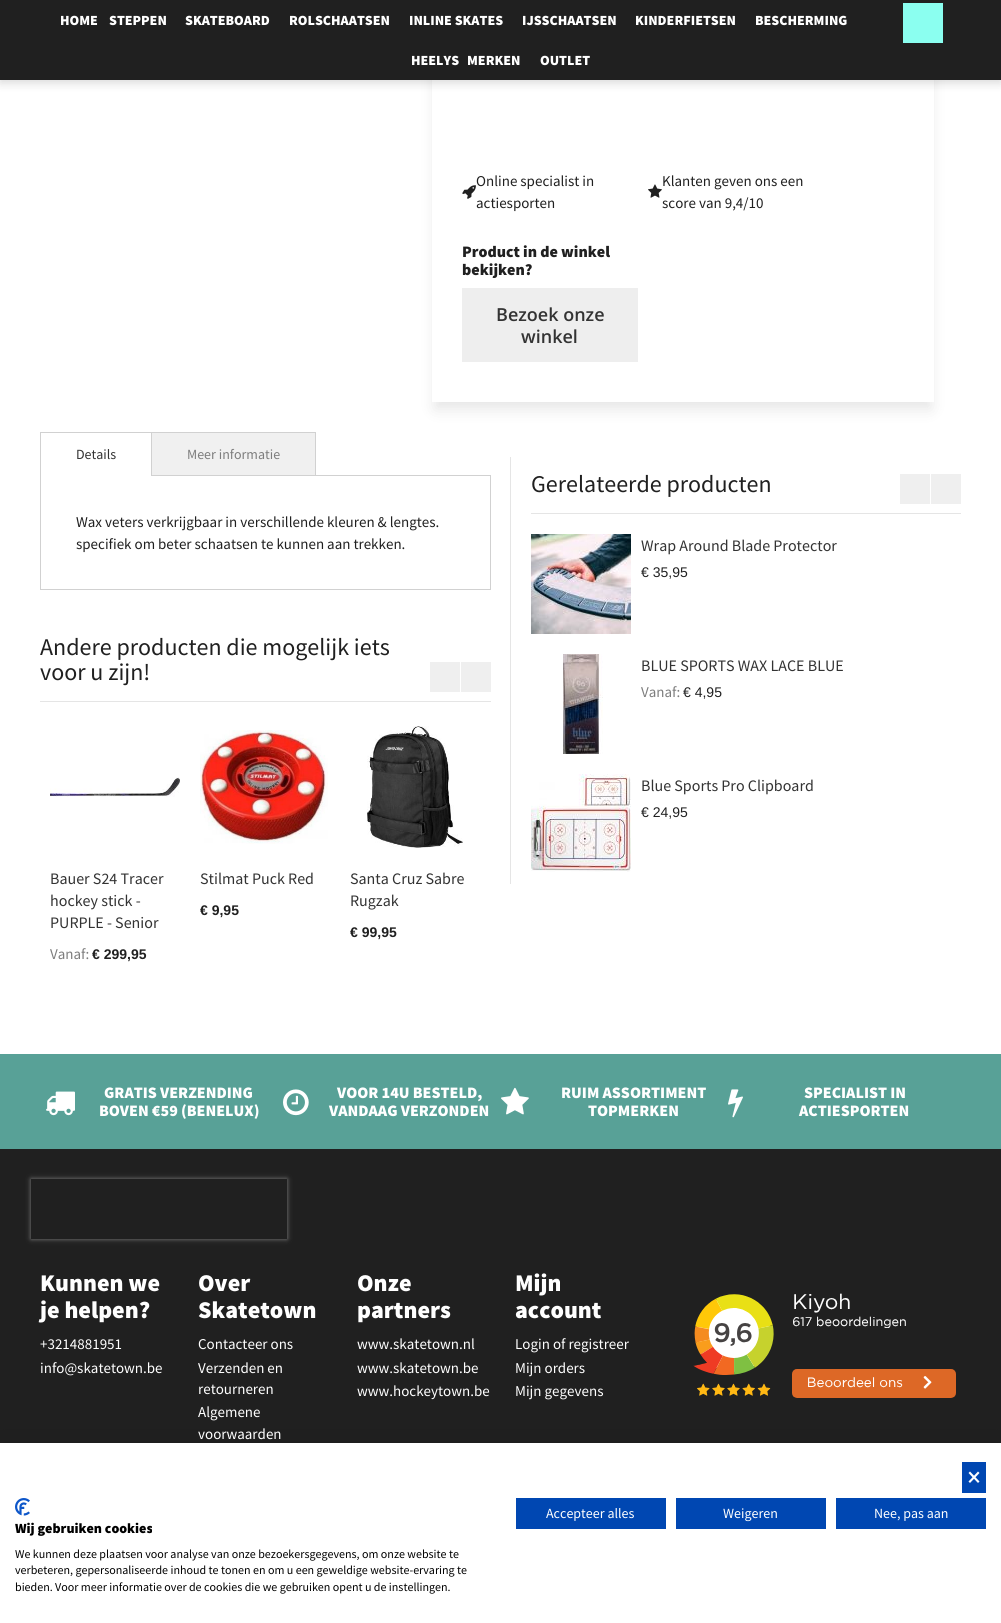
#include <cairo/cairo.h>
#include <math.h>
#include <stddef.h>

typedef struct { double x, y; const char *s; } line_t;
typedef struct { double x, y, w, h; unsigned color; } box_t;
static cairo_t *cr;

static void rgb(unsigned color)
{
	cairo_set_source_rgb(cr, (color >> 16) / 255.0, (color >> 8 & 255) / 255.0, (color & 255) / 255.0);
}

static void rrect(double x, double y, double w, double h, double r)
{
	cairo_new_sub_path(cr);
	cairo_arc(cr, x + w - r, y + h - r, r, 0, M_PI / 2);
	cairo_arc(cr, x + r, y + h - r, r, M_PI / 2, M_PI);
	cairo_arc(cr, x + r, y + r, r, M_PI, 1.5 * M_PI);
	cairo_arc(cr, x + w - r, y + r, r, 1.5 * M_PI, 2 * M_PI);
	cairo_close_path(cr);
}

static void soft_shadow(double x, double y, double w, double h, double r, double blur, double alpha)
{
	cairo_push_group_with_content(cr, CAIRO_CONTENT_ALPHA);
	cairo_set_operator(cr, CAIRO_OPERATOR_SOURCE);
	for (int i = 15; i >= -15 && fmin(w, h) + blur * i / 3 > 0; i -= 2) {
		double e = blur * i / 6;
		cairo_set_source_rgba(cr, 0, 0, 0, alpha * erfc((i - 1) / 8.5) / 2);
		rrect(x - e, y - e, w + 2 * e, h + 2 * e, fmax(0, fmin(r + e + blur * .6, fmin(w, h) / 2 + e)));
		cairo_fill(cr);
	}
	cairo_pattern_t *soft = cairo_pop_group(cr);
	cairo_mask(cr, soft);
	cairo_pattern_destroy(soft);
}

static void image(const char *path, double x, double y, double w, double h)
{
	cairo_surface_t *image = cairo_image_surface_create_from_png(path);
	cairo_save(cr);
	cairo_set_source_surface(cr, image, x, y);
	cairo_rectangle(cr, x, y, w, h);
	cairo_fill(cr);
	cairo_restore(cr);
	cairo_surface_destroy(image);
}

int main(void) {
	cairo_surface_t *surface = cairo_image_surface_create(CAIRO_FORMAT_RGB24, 1001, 1623);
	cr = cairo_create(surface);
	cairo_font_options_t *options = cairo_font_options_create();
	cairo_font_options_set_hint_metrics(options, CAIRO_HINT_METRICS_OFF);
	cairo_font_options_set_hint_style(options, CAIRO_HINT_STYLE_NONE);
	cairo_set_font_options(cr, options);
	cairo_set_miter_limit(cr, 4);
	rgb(0xffffff);
	cairo_paint(cr);
	rgb(0x000000);
	soft_shadow(0, 3, 1001, 80, 0, 5, 0.15);
	cairo_save(cr);
	cairo_set_fill_rule(cr, CAIRO_FILL_RULE_EVEN_ODD);
	cairo_new_path(cr);
	cairo_move_to(cr, 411, 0);
	cairo_line_to(cr, 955, 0);
	cairo_line_to(cr, 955, 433);
	cairo_line_to(cr, 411, 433);
	cairo_close_path(cr);
	cairo_move_to(cr, 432, -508);
	cairo_line_to(cr, 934, -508);
	cairo_line_to(cr, 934, 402);
	cairo_line_to(cr, 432, 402);
	cairo_close_path(cr);
	cairo_clip(cr);
	soft_shadow(435, -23, 496, 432, 0, 7.5, 0.1);
	cairo_restore(cr);
	rgb(0x202020);
	cairo_rectangle(cr, 0, 0, 1001, 80);
	cairo_fill(cr);
	rgb(0x8bfff0);
	cairo_rectangle(cr, 903, 3, 40, 40);
	cairo_fill(cr);
	image("img/1.png", 462, 185, 14, 14);
	image("img/2.png", 648, 184, 14, 14);
	rgb(0xeeeeee);
	cairo_rectangle(cr, 462, 288, 176, 74);
	cairo_fill(cr);
	cairo_rectangle(cr, 40.5, 475.5, 450, 114);
	rgb(0xd1d1d1);
	cairo_set_line_width(cr, 1);
	cairo_stroke(cr);
	{
		static const box_t items[] = {
			{41, 475, 110, 1, 0xffffff},
			{40, 432, 276, 1, 0xd1d1d1},
			{40, 432, 1, 44, 0xd1d1d1},
			{152, 433, 163, 42, 0xf0f0f0},
			{315, 432, 1, 43, 0xd1d1d1},
			{151, 432, 1, 43, 0xd1d1d1},
			{40, 701, 451, 1, 0xe5e5e5},
			{430, 662, 30, 30, 0xefefef},
			{461, 662, 30, 30, 0xefefef},
		};
		for (size_t i = 0; i < sizeof items / sizeof *items; i++) {
			rgb(items[i].color);
			cairo_rectangle(cr, items[i].x, items[i].y, items[i].w, items[i].h);
			cairo_fill(cr);
		}
	}
	image("img/3.png", 50, 777, 130, 20);
	image("img/4.png", 200, 730, 128, 114);
	image("img/5.png", 367, 726, 96, 122);
	{
		static const box_t items[] = {
			{510, 457, 1, 427, 0xe5e5e5},
			{531, 513, 430, 1, 0xe5e5e5},
			{900, 474, 30, 30, 0xefefef},
			{931, 474, 30, 30, 0xefefef},
		};
		for (size_t i = 0; i < sizeof items / sizeof *items; i++) {
			rgb(items[i].color);
			cairo_rectangle(cr, items[i].x, items[i].y, items[i].w, items[i].h);
			cairo_fill(cr);
		}
	}
	image("img/6.png", 531, 534, 100, 100);
	image("img/7.png", 563, 654, 40, 100);
	image("img/8.png", 531, 774, 100, 98);
	rgb(0x202020);
	cairo_rectangle(cr, 0, 1149, 1001, 294);
	cairo_fill(cr);
	rgb(0x58a197);
	cairo_rectangle(cr, 0, 1054, 1001, 95);
	cairo_fill(cr);
	image("img/9.png", 46, 1091, 29, 25);
	image("img/10.png", 283, 1089, 26, 27);
	image("img/11.png", 501, 1087, 28, 28);
	image("img/12.png", 728, 1089, 15, 29);
	cairo_save(cr);
	cairo_set_fill_rule(cr, CAIRO_FILL_RULE_EVEN_ODD);
	cairo_new_path(cr);
	cairo_move_to(cr, 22, 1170);
	cairo_line_to(cr, 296, 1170);
	cairo_line_to(cr, 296, 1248);
	cairo_line_to(cr, 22, 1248);
	cairo_close_path(cr);
	cairo_move_to(cr, 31, 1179);
	cairo_line_to(cr, 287, 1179);
	cairo_line_to(cr, 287, 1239);
	cairo_line_to(cr, 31, 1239);
	cairo_close_path(cr);
	cairo_clip(cr);
	rgb(0x808080);
	soft_shadow(31, 1179, 256, 60, 0, 2.5, 1);
	cairo_restore(cr);
	image("img/13.png", 693, 1293, 263, 105);
	rgb(0x000000);
	soft_shadow(0, 1443, 1001, 180, 0, 12, 0.1);
	rgb(0xffffff);
	cairo_rectangle(cr, 0, 1443, 1001, 180);
	cairo_fill(cr);
	rgb(0x0047b2);
	cairo_rectangle(cr, 962, 1462, 24, 31);
	cairo_fill(cr);
	rgb(0xffffff);
	cairo_new_path(cr);
	cairo_move_to(cr, 978, 1471.5);
	cairo_line_to(cr, 979.5, 1473);
	cairo_line_to(cr, 970, 1483);
	cairo_line_to(cr, 968.5, 1481.5);
	cairo_close_path(cr);
	cairo_fill(cr);
	cairo_new_path(cr);
	cairo_move_to(cr, 968.5, 1473);
	cairo_line_to(cr, 970, 1471.5);
	cairo_line_to(cr, 979.5, 1481.5);
	cairo_line_to(cr, 978, 1483);
	cairo_close_path(cr);
	cairo_fill(cr);
	{
		static const box_t items[] = {
			{516, 1498, 150, 31, 0x0047b2},
			{676, 1498, 150, 31, 0x0047b2},
			{836, 1498, 150, 31, 0x0047b2},
		};
		for (size_t i = 0; i < sizeof items / sizeof *items; i++) {
			rgb(items[i].color);
			cairo_rectangle(cr, items[i].x, items[i].y, items[i].w, items[i].h);
			cairo_fill(cr);
		}
	}
	image("img/14.png", 15, 1498, 15, 18);
	cairo_select_font_face(cr, "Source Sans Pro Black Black", CAIRO_FONT_SLANT_NORMAL, CAIRO_FONT_WEIGHT_NORMAL);
	cairo_set_font_size(cr, 14);
	rgb(0xffffff);
	{
		static const line_t items[] = {
			{60, 25, "HOME"},
			{109, 25, "STEPPEN"},
			{185, 25, "SKATEBOARD"},
			{289, 25, "ROLSCHAATSEN"},
			{409, 25, "INLINE SKATES"},
			{522, 25, "IJSSCHAATSEN"},
			{635, 25, "KINDERFIETSEN"},
			{755, 25, "BESCHERMING"},
			{411, 65, "HEELYS"},
			{467, 65, "MERKEN"},
			{540, 65, "OUTLET"},
		};
		for (size_t i = 0; i < sizeof items / sizeof *items; i++) {
			cairo_move_to(cr, items[i].x, items[i].y);
			cairo_show_text(cr, items[i].s);
		}
	}
	cairo_select_font_face(cr, "Source Sans Pro", CAIRO_FONT_SLANT_NORMAL, CAIRO_FONT_WEIGHT_NORMAL);
	cairo_set_font_size(cr, 15);
	rgb(0x202020);
	{
		static const line_t items[] = {
			{476, 186, "Online specialist in"},
			{476, 208, "actiesporten"},
			{662, 186, "Klanten geven ons een"},
			{662, 208, "score van 9,4/10"},
		};
		for (size_t i = 0; i < sizeof items / sizeof *items; i++) {
			cairo_move_to(cr, items[i].x, items[i].y);
			cairo_show_text(cr, items[i].s);
		}
	}
	cairo_select_font_face(cr, "Source Sans Pro Black Black", CAIRO_FONT_SLANT_NORMAL, CAIRO_FONT_WEIGHT_NORMAL);
	cairo_set_font_size(cr, 16);
	cairo_move_to(cr, 462, 257);
	cairo_show_text(cr, "Product in de winkel");
	cairo_move_to(cr, 462, 275);
	cairo_show_text(cr, "bekijken?");
	cairo_select_font_face(cr, "Open Sans SemiBold", CAIRO_FONT_SLANT_NORMAL, CAIRO_FONT_WEIGHT_NORMAL);
	cairo_set_font_size(cr, 18);
	rgb(0x333333);
	cairo_move_to(cr, 496, 321);
	cairo_show_text(cr, "Bezoek onze");
	cairo_move_to(cr, 521, 343);
	cairo_show_text(cr, "winkel");
	cairo_select_font_face(cr, "Source Sans Pro", CAIRO_FONT_SLANT_NORMAL, CAIRO_FONT_WEIGHT_NORMAL);
	cairo_set_font_size(cr, 14);
	cairo_move_to(cr, 76, 459);
	cairo_show_text(cr, "Details");
	rgb(0x7d7d7d);
	cairo_move_to(cr, 187, 459);
	cairo_show_text(cr, "Meer informatie");
	cairo_set_font_size(cr, 15);
	rgb(0x202020);
	cairo_move_to(cr, 76, 527);
	cairo_show_text(cr, "Wax veters verkrijgbaar in verschillende kleuren & lengtes.");
	cairo_move_to(cr, 76, 549);
	cairo_show_text(cr, "specifiek om beter schaatsen te kunnen aan trekken.");
	cairo_set_font_size(cr, 24);
	cairo_move_to(cr, 40, 655);
	cairo_show_text(cr, "Andere producten die mogelijk iets");
	cairo_move_to(cr, 40, 680);
	cairo_show_text(cr, "voor u zijn!");
	cairo_set_font_size(cr, 16);
	rgb(0x333333);
	{
		static const line_t items[] = {
			{50, 884, "Bauer S24 Tracer"},
			{50, 906, "hockey stick -"},
			{50, 928, "PURPLE - Senior"},
		};
		for (size_t i = 0; i < sizeof items / sizeof *items; i++) {
			cairo_move_to(cr, items[i].x, items[i].y);
			cairo_show_text(cr, items[i].s);
		}
	}
	cairo_set_font_size(cr, 15);
	rgb(0x7d7d7d);
	cairo_move_to(cr, 50, 959);
	cairo_show_text(cr, "Vanaf:");
	cairo_select_font_face(cr, "Liberation Sans", CAIRO_FONT_SLANT_NORMAL, CAIRO_FONT_WEIGHT_BOLD);
	cairo_set_font_size(cr, 14);
	rgb(0x202020);
	cairo_move_to(cr, 92, 959);
	cairo_show_text(cr, "€ 299,95");
	cairo_select_font_face(cr, "Source Sans Pro", CAIRO_FONT_SLANT_NORMAL, CAIRO_FONT_WEIGHT_NORMAL);
	cairo_set_font_size(cr, 16);
	rgb(0x333333);
	cairo_move_to(cr, 200, 884);
	cairo_show_text(cr, "Stilmat Puck Red");
	cairo_select_font_face(cr, "Liberation Sans", CAIRO_FONT_SLANT_NORMAL, CAIRO_FONT_WEIGHT_BOLD);
	cairo_set_font_size(cr, 14);
	rgb(0x202020);
	cairo_move_to(cr, 200, 915);
	cairo_show_text(cr, "€ 9,95");
	cairo_select_font_face(cr, "Source Sans Pro", CAIRO_FONT_SLANT_NORMAL, CAIRO_FONT_WEIGHT_NORMAL);
	cairo_set_font_size(cr, 16);
	rgb(0x333333);
	cairo_move_to(cr, 350, 884);
	cairo_show_text(cr, "Santa Cruz Sabre");
	cairo_move_to(cr, 350, 906);
	cairo_show_text(cr, "Rugzak");
	cairo_select_font_face(cr, "Liberation Sans", CAIRO_FONT_SLANT_NORMAL, CAIRO_FONT_WEIGHT_BOLD);
	cairo_set_font_size(cr, 14);
	rgb(0x202020);
	cairo_move_to(cr, 350, 937);
	cairo_show_text(cr, "€ 99,95");
	cairo_select_font_face(cr, "Source Sans Pro", CAIRO_FONT_SLANT_NORMAL, CAIRO_FONT_WEIGHT_NORMAL);
	cairo_set_font_size(cr, 24);
	cairo_move_to(cr, 531, 492);
	cairo_show_text(cr, "Gerelateerde producten");
	cairo_set_font_size(cr, 16);
	rgb(0x333333);
	cairo_move_to(cr, 641, 551);
	cairo_show_text(cr, "Wrap Around Blade Protector");
	cairo_select_font_face(cr, "Liberation Sans", CAIRO_FONT_SLANT_NORMAL, CAIRO_FONT_WEIGHT_NORMAL);
	cairo_set_font_size(cr, 14);
	rgb(0x202020);
	cairo_move_to(cr, 641, 577);
	cairo_show_text(cr, "€ 35,95");
	cairo_select_font_face(cr, "Source Sans Pro", CAIRO_FONT_SLANT_NORMAL, CAIRO_FONT_WEIGHT_NORMAL);
	cairo_set_font_size(cr, 16);
	rgb(0x333333);
	cairo_move_to(cr, 641, 671);
	cairo_show_text(cr, "BLUE SPORTS WAX LACE BLUE");
	cairo_set_font_size(cr, 15);
	rgb(0x7d7d7d);
	cairo_move_to(cr, 641, 697);
	cairo_show_text(cr, "Vanaf:");
	cairo_select_font_face(cr, "Liberation Sans", CAIRO_FONT_SLANT_NORMAL, CAIRO_FONT_WEIGHT_NORMAL);
	cairo_set_font_size(cr, 14);
	rgb(0x202020);
	cairo_move_to(cr, 683, 697);
	cairo_show_text(cr, "€ 4,95");
	cairo_select_font_face(cr, "Source Sans Pro", CAIRO_FONT_SLANT_NORMAL, CAIRO_FONT_WEIGHT_NORMAL);
	cairo_set_font_size(cr, 16);
	rgb(0x333333);
	cairo_move_to(cr, 641, 791);
	cairo_show_text(cr, "Blue Sports Pro Clipboard");
	cairo_select_font_face(cr, "Liberation Sans", CAIRO_FONT_SLANT_NORMAL, CAIRO_FONT_WEIGHT_NORMAL);
	cairo_set_font_size(cr, 14);
	rgb(0x202020);
	cairo_move_to(cr, 641, 817);
	cairo_show_text(cr, "€ 24,95");
	cairo_select_font_face(cr, "Source Sans Pro Black Black", CAIRO_FONT_SLANT_NORMAL, CAIRO_FONT_WEIGHT_NORMAL);
	cairo_set_font_size(cr, 16);
	rgb(0xffffff);
	{
		static const line_t items[] = {
			{104, 1098, "GRATIS VERZENDING"},
			{99, 1116, "BOVEN €59 (BENELUX)"},
			{337, 1098, "VOOR 14U BESTELD,"},
			{329, 1116, "VANDAAG VERZONDEN"},
			{561, 1098, "RUIM ASSORTIMENT"},
			{588, 1116, "TOPMERKEN"},
			{804, 1098, "SPECIALIST IN"},
			{799, 1116, "ACTIESPORTEN"},
		};
		for (size_t i = 0; i < sizeof items / sizeof *items; i++) {
			cairo_move_to(cr, items[i].x, items[i].y);
			cairo_show_text(cr, items[i].s);
		}
	}
	cairo_set_font_size(cr, 24);
	cairo_move_to(cr, 40, 1291);
	cairo_show_text(cr, "Kunnen we");
	cairo_move_to(cr, 40, 1318);
	cairo_show_text(cr, "je helpen?");
	cairo_select_font_face(cr, "Source Sans Pro", CAIRO_FONT_SLANT_NORMAL, CAIRO_FONT_WEIGHT_NORMAL);
	cairo_set_font_size(cr, 15);
	cairo_move_to(cr, 40, 1349);
	cairo_show_text(cr, "+3214881951");
	cairo_move_to(cr, 40, 1373);
	cairo_show_text(cr, "info@skatetown.be");
	cairo_select_font_face(cr, "Source Sans Pro Black Black", CAIRO_FONT_SLANT_NORMAL, CAIRO_FONT_WEIGHT_NORMAL);
	cairo_set_font_size(cr, 24);
	cairo_move_to(cr, 198, 1291);
	cairo_show_text(cr, "Over");
	cairo_move_to(cr, 198, 1318);
	cairo_show_text(cr, "Skatetown");
	cairo_select_font_face(cr, "Source Sans Pro", CAIRO_FONT_SLANT_NORMAL, CAIRO_FONT_WEIGHT_NORMAL);
	cairo_set_font_size(cr, 15);
	{
		static const line_t items[] = {
			{198, 1349, "Contacteer ons"},
			{198, 1373, "Verzenden en"},
			{198, 1394, "retourneren"},
			{198, 1417, "Algemene"},
			{198, 1439, "voorwaarden"},
		};
		for (size_t i = 0; i < sizeof items / sizeof *items; i++) {
			cairo_move_to(cr, items[i].x, items[i].y);
			cairo_show_text(cr, items[i].s);
		}
	}
	cairo_select_font_face(cr, "Source Sans Pro Black Black", CAIRO_FONT_SLANT_NORMAL, CAIRO_FONT_WEIGHT_NORMAL);
	cairo_set_font_size(cr, 24);
	cairo_move_to(cr, 357, 1291);
	cairo_show_text(cr, "Onze");
	cairo_move_to(cr, 357, 1318);
	cairo_show_text(cr, "partners");
	cairo_select_font_face(cr, "Source Sans Pro", CAIRO_FONT_SLANT_NORMAL, CAIRO_FONT_WEIGHT_NORMAL);
	cairo_set_font_size(cr, 15);
	{
		static const line_t items[] = {
			{357, 1349, "www.skatetown.nl"},
			{357, 1373, "www.skatetown.be"},
			{357, 1396, "www.hockeytown.be"},
		};
		for (size_t i = 0; i < sizeof items / sizeof *items; i++) {
			cairo_move_to(cr, items[i].x, items[i].y);
			cairo_show_text(cr, items[i].s);
		}
	}
	cairo_select_font_face(cr, "Source Sans Pro Black Black", CAIRO_FONT_SLANT_NORMAL, CAIRO_FONT_WEIGHT_NORMAL);
	cairo_set_font_size(cr, 24);
	cairo_move_to(cr, 515, 1291);
	cairo_show_text(cr, "Mijn");
	cairo_move_to(cr, 515, 1318);
	cairo_show_text(cr, "account");
	cairo_select_font_face(cr, "Source Sans Pro", CAIRO_FONT_SLANT_NORMAL, CAIRO_FONT_WEIGHT_NORMAL);
	cairo_set_font_size(cr, 15);
	{
		static const line_t items[] = {
			{515, 1349, "Login of registreer"},
			{515, 1373, "Mijn orders"},
			{515, 1396, "Mijn gegevens"},
		};
		for (size_t i = 0; i < sizeof items / sizeof *items; i++) {
			cairo_move_to(cr, items[i].x, items[i].y);
			cairo_show_text(cr, items[i].s);
		}
	}
	cairo_set_font_size(cr, 14);
	{
		static const line_t items[] = {
			{546, 1518, "Accepteer alles"},
			{723, 1518, "Weigeren"},
			{874, 1518, "Nee, pas aan"},
		};
		for (size_t i = 0; i < sizeof items / sizeof *items; i++) {
			cairo_move_to(cr, items[i].x, items[i].y);
			cairo_show_text(cr, items[i].s);
		}
	}
	cairo_select_font_face(cr, "Source Sans Pro Black Black", CAIRO_FONT_SLANT_NORMAL, CAIRO_FONT_WEIGHT_NORMAL);
	rgb(0x000000);
	cairo_move_to(cr, 15, 1533);
	cairo_show_text(cr, "Wij gebruiken cookies");
	cairo_select_font_face(cr, "Source Sans Pro", CAIRO_FONT_SLANT_NORMAL, CAIRO_FONT_WEIGHT_NORMAL);
	cairo_set_font_size(cr, 12);
	{
		static const line_t items[] = {
			{15, 1558, "We kunnen deze plaatsen voor analyse van onze bezoekersgegevens, om onze website te"},
			{15, 1574, "verbeteren, gepersonaliseerde inhoud te tonen en om u een geweldige website-ervaring te"},
			{15, 1591, "bieden. Voor meer informatie over de cookies die we gebruiken opent u de instellingen."},
		};
		for (size_t i = 0; i < sizeof items / sizeof *items; i++) {
			cairo_move_to(cr, items[i].x, items[i].y);
			cairo_show_text(cr, items[i].s);
		}
	}
	cairo_surface_write_to_png(surface, "page.png");
	cairo_font_options_destroy(options);
	cairo_destroy(cr);
	cairo_surface_destroy(surface);
	return 0;
}
